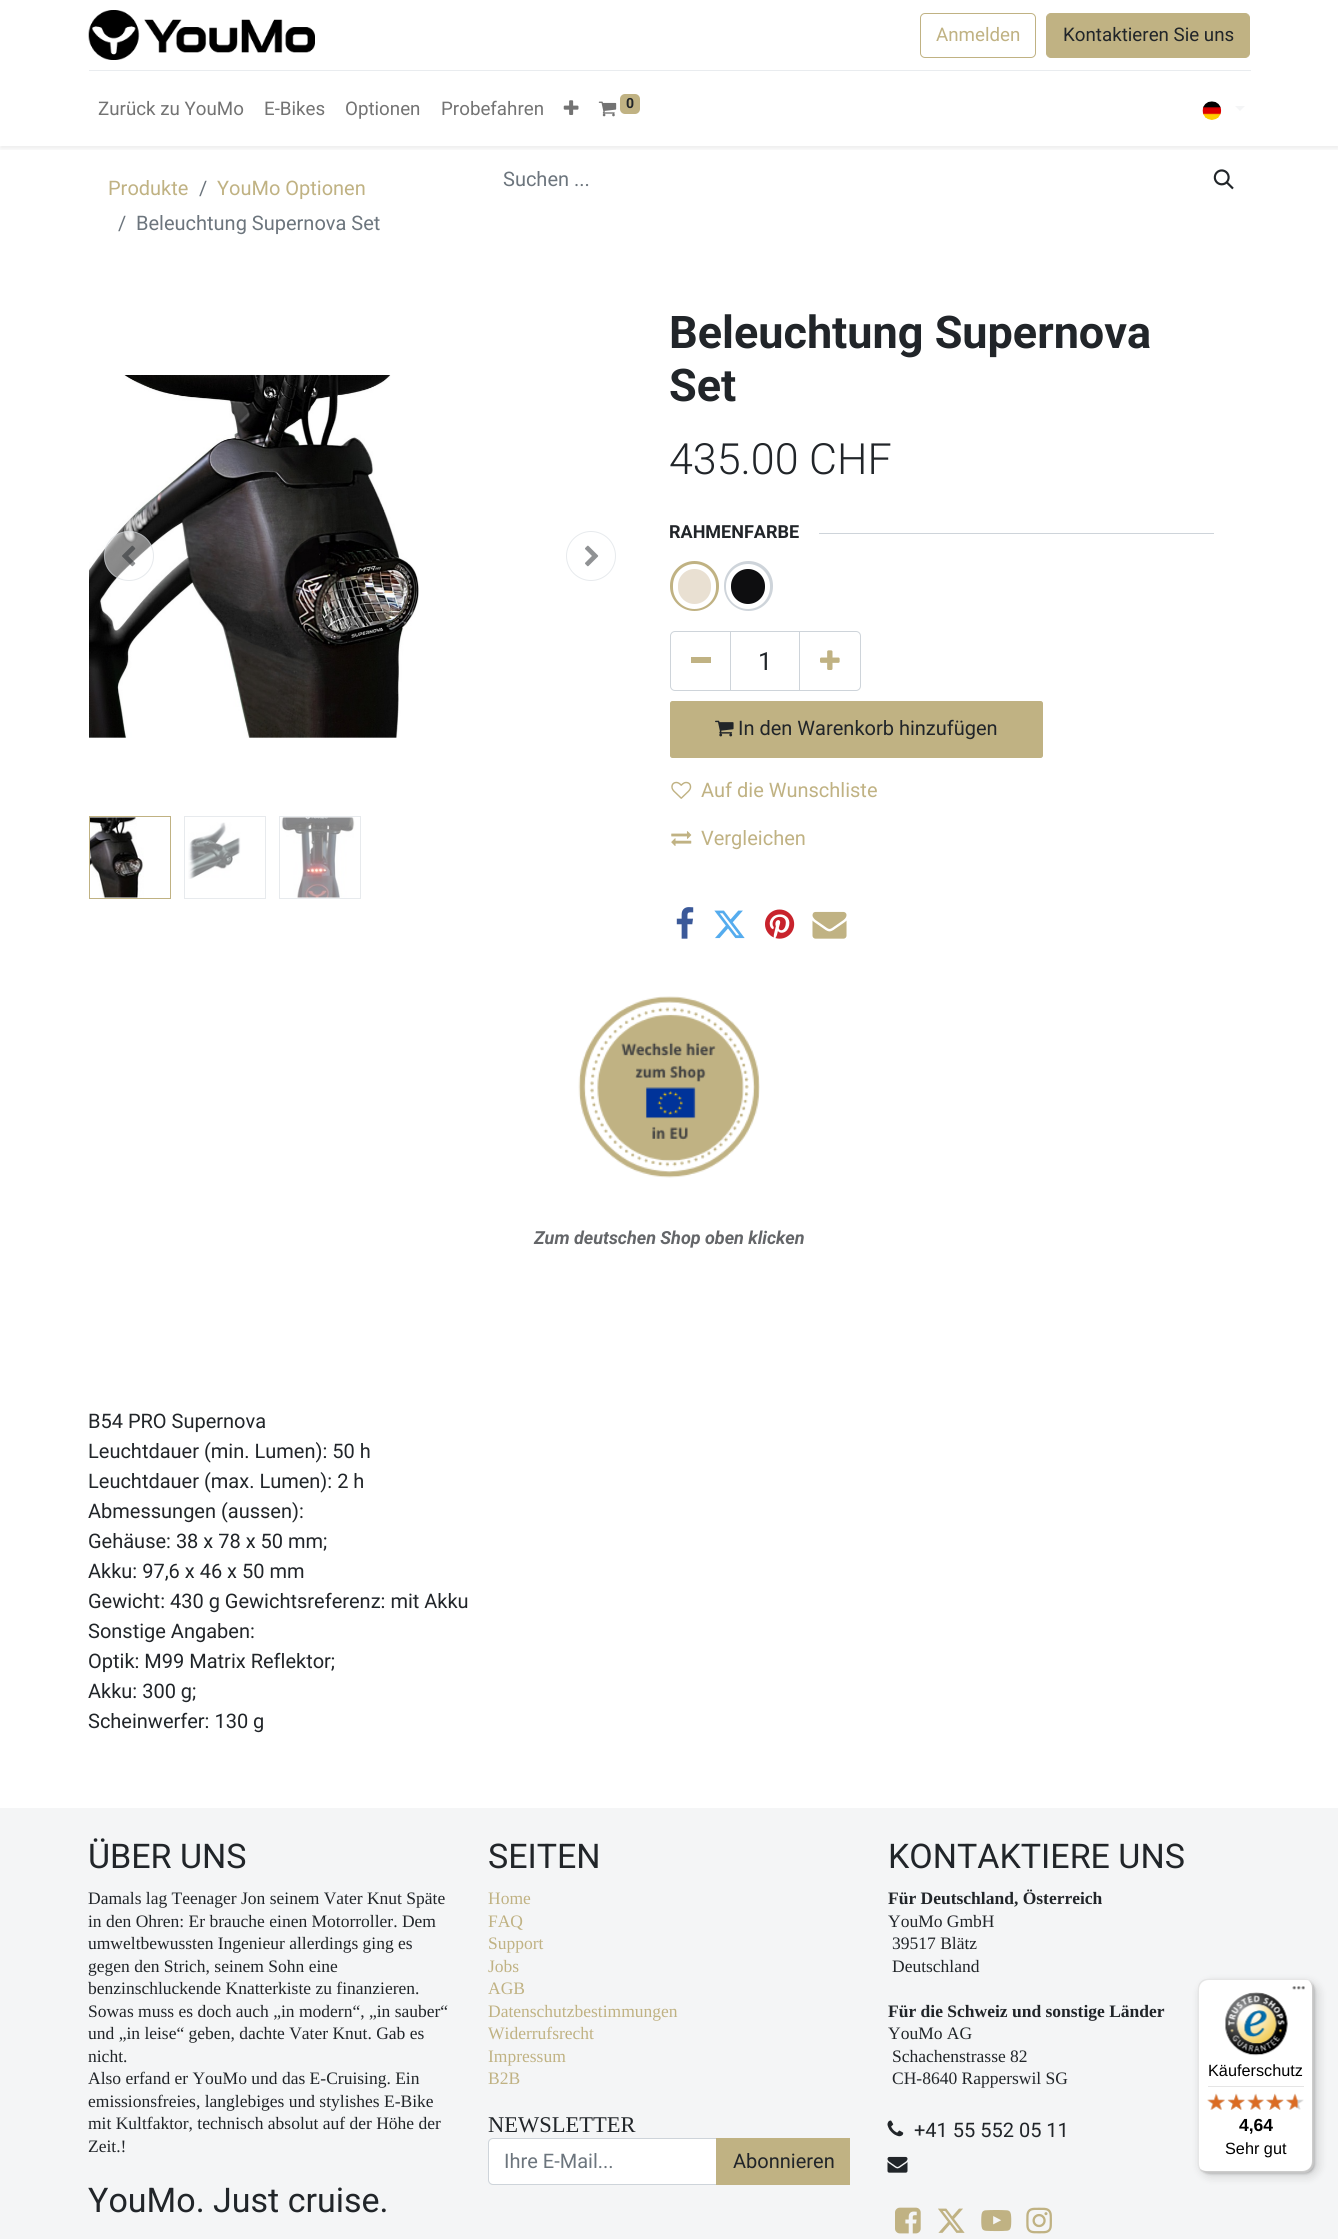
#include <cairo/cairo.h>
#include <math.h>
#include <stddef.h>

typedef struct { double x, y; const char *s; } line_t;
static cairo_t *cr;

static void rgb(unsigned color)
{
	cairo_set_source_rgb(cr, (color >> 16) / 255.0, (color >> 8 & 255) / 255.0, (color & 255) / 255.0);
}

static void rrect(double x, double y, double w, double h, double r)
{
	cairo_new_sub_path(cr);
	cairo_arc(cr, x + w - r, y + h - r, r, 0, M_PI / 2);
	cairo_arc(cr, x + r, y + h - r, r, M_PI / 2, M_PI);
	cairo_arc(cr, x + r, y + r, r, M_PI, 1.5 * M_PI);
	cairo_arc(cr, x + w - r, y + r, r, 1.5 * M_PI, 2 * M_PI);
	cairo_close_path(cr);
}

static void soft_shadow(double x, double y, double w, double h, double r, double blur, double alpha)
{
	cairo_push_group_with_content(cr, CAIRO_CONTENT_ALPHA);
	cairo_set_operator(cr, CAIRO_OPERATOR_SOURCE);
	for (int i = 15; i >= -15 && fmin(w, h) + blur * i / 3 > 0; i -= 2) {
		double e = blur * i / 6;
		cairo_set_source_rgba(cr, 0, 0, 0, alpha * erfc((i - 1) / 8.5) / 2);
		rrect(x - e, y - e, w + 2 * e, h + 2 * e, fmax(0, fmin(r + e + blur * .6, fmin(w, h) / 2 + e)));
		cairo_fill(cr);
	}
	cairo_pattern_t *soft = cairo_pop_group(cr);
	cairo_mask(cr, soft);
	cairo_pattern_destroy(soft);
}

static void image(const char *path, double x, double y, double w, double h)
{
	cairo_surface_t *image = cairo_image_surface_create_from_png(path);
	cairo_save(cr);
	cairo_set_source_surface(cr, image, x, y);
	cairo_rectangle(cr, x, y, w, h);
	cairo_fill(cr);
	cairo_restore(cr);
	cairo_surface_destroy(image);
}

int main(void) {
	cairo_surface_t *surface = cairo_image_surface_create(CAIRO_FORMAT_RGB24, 1338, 2239);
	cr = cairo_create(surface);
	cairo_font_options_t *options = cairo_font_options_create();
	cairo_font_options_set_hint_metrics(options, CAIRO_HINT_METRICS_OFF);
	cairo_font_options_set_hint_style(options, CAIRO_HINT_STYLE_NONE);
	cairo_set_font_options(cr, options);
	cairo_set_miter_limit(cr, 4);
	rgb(0xffffff);
	cairo_paint(cr);
	cairo_save(cr);
	cairo_rectangle(cr, 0, 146, 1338, 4);
	cairo_clip(cr);
	rgb(0x000000);
	soft_shadow(0, 3, 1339, 146, 0, 2.5, 0.07);
	cairo_restore(cr);
	image("img/1.png", 88, 10, 227, 50);
	rrect(920.5, 13.5, 115, 44, 4.5);
	rgb(0xc0b283);
	cairo_set_line_width(cr, 1);
	cairo_stroke(cr);
	rrect(1046.5, 13.5, 203, 44, 4.5);
	cairo_fill_preserve(cr);
	cairo_stroke(cr);
	rgb(0xe9ecef);
	cairo_rectangle(cr, 89, 70, 1162, 1);
	cairo_fill(cr);
	image("img/2.png", 563, 100, 16, 15);
	image("img/3.png", 598, 101, 19, 16);
	rgb(0xc0b283);
	rrect(620, 94, 20, 20, 5);
	cairo_fill(cr);
	image("img/4.png", 1202, 101, 20, 19);
	rgb(0xf4f5f6);
	cairo_new_path(cr);
	cairo_move_to(cr, 1235, 106);
	cairo_line_to(cr, 1245, 106);
	cairo_line_to(cr, 1240, 111);
	cairo_close_path(cr);
	cairo_fill(cr);
	image("img/5.png", 1213, 169, 21, 21);
	image("img/6.png", 89, 375, 330, 363);
	cairo_set_source_rgba(cr, 1, 1, 1, 0.5);
	cairo_arc(cr, 129, 556, 25, 0, 2 * M_PI);
	cairo_fill(cr);
	cairo_arc(cr, 129, 556, 24.5, 0, 2 * M_PI);
	cairo_set_source_rgba(cr, 0.808, 0.831, 0.855, 0.5);
	cairo_stroke(cr);
	image("img/7.png", 122, 545, 14, 22);
	cairo_arc(cr, 591, 556, 24.5, 0, 2 * M_PI);
	rgb(0xe7eaed);
	cairo_stroke(cr);
	image("img/8.png", 585, 545, 14, 22);
	cairo_rectangle(cr, 89.5, 816.5, 81, 82);
	rgb(0xc0b283);
	cairo_stroke(cr);
	image("img/9.png", 90, 817, 54, 81);
	cairo_rectangle(cr, 184.5, 816.5, 81, 82);
	rgb(0xe7eaed);
	cairo_stroke(cr);
	image("img/10.png", 188, 822, 53, 57);
	cairo_rectangle(cr, 279.5, 816.5, 81, 82);
	cairo_stroke(cr);
	image("img/11.png", 281, 817, 74, 81);
	rgb(0xced4da);
	cairo_rectangle(cr, 819, 533, 395, 1);
	cairo_fill(cr);
	rgb(0xe9e0d2);
	rrect(673, 564, 43, 44, 21.5);
	cairo_fill_preserve(cr);
	rgb(0xc0b283);
	cairo_set_line_width(cr, 6);
	cairo_stroke(cr);
	rrect(675.5, 566.5, 38, 40, 19);
	rgb(0xffffff);
	cairo_set_line_width(cr, 5);
	cairo_stroke(cr);
	rgb(0x0e0e10);
	rrect(727, 564, 43, 44, 21.5);
	cairo_fill_preserve(cr);
	rgb(0xced4da);
	cairo_set_line_width(cr, 6);
	cairo_stroke(cr);
	rrect(728.5, 566.5, 39, 40, 19.5);
	rgb(0xffffff);
	cairo_set_line_width(cr, 5);
	cairo_stroke(cr);
	cairo_rectangle(cr, 730.5, 631.5, 69, 59);
	rgb(0xced4da);
	cairo_set_line_width(cr, 1);
	cairo_stroke(cr);
	cairo_new_path(cr);
	cairo_move_to(cr, 675, 631.5);
	cairo_line_to(cr, 730.5, 631.5);
	cairo_line_to(cr, 730.5, 690.5);
	cairo_line_to(cr, 675, 690.5);
	cairo_curve_to(cr, 672.5, 690.5, 670.5, 688.5, 670.5, 686);
	cairo_line_to(cr, 670.5, 636);
	cairo_curve_to(cr, 670.5, 633.5, 672.5, 631.5, 675, 631.5);
	cairo_close_path(cr);
	cairo_stroke(cr);
	rgb(0xc0b283);
	cairo_rectangle(cr, 691, 657, 20, 6);
	cairo_fill(cr);
	cairo_new_path(cr);
	cairo_move_to(cr, 799.5, 631.5);
	cairo_line_to(cr, 856, 631.5);
	cairo_curve_to(cr, 858.5, 631.5, 860.5, 633.5, 860.5, 636);
	cairo_line_to(cr, 860.5, 686);
	cairo_curve_to(cr, 860.5, 688.5, 858.5, 690.5, 856, 690.5);
	cairo_line_to(cr, 799.5, 690.5);
	cairo_close_path(cr);
	rgb(0xced4da);
	cairo_stroke(cr);
	image("img/12.png", 820, 650, 20, 20);
	rgb(0xc0b283);
	rrect(670.5, 701.5, 372, 56, 2);
	cairo_fill_preserve(cr);
	cairo_stroke(cr);
	image("img/13.png", 715, 720, 19, 17);
	image("img/14.png", 671, 781, 21, 18);
	image("img/15.png", 671, 831, 21, 15);
	image("img/16.png", 676, 907, 18, 32);
	image("img/17.png", 714, 910, 31, 29);
	image("img/18.png", 765, 909, 30, 30);
	image("img/19.png", 812, 911, 35, 28);
	image("img/20.png", 578, 996, 182, 182);
	rgb(0xf4f5f6);
	cairo_rectangle(cr, 0, 1808, 1338, 431);
	cairo_fill(cr);
	rgb(0xffffff);
	cairo_new_path(cr);
	cairo_move_to(cr, 493, 2139);
	cairo_line_to(cr, 716, 2139);
	cairo_line_to(cr, 716, 2184);
	cairo_line_to(cr, 493, 2184);
	cairo_curve_to(cr, 491, 2184, 489, 2182, 489, 2180);
	cairo_line_to(cr, 489, 2143);
	cairo_curve_to(cr, 489, 2141, 491, 2139, 493, 2139);
	cairo_close_path(cr);
	cairo_fill(cr);
	cairo_new_path(cr);
	cairo_move_to(cr, 493, 2138.5);
	cairo_line_to(cr, 717.5, 2138.5);
	cairo_line_to(cr, 717.5, 2184.5);
	cairo_line_to(cr, 493, 2184.5);
	cairo_curve_to(cr, 490.5, 2184.5, 488.5, 2182.5, 488.5, 2180);
	cairo_line_to(cr, 488.5, 2143);
	cairo_curve_to(cr, 488.5, 2140.5, 490.5, 2138.5, 493, 2138.5);
	cairo_close_path(cr);
	rgb(0xced4da);
	cairo_stroke(cr);
	rgb(0xc0b283);
	cairo_rectangle(cr, 716, 2138, 134, 47);
	cairo_fill(cr);
	image("img/21.png", 887, 2120, 17, 17);
	image("img/22.png", 887, 2156, 21, 17);
	image("img/23.png", 895, 2207, 26, 27);
	image("img/24.png", 938, 2208, 27, 25);
	image("img/25.png", 981, 2210, 31, 22);
	image("img/26.png", 1026, 2207, 26, 27);
	rgb(0x000000);
	soft_shadow(1201, 1983, 117, 193, 10, 5, 0.15);
	soft_shadow(1199, 1980, 116, 194, 10, 1, 0.15);
	rgb(0xffffff);
	rrect(1198, 1979, 116, 194, 10);
	cairo_fill(cr);
	cairo_set_source_rgba(cr, 0, 0, 0, 0.1);
	cairo_new_path(cr);
	cairo_move_to(cr, 1209, 1980);
	cairo_line_to(cr, 1305, 1980);
	cairo_curve_to(cr, 1307, 1980, 1309, 1980, 1310, 1981);
	cairo_curve_to(cr, 1309, 1980, 1306, 1979, 1304, 1979);
	cairo_line_to(cr, 1208, 1979);
	cairo_curve_to(cr, 1202, 1979, 1198, 1983, 1198, 1989);
	cairo_line_to(cr, 1198, 2163);
	cairo_curve_to(cr, 1198, 2166, 1199, 2169, 1202, 2171);
	cairo_curve_to(cr, 1200, 2169, 1199, 2166, 1199, 2164);
	cairo_line_to(cr, 1199, 1990);
	cairo_curve_to(cr, 1199, 1984, 1203, 1980, 1209, 1980);
	cairo_close_path(cr);
	cairo_fill(cr);
	cairo_set_source_rgba(cr, 0, 0, 0, 0.2);
	cairo_new_path(cr);
	cairo_move_to(cr, 1200, 2169);
	cairo_curve_to(cr, 1202, 2171, 1205, 2173, 1208, 2173);
	cairo_line_to(cr, 1304, 2173);
	cairo_curve_to(cr, 1310, 2173, 1314, 2169, 1314, 2163);
	cairo_line_to(cr, 1314, 1989);
	cairo_curve_to(cr, 1314, 1985, 1312, 1982, 1308, 1980);
	cairo_curve_to(cr, 1311, 1982, 1312, 1985, 1312, 1988);
	cairo_line_to(cr, 1312, 2161);
	cairo_curve_to(cr, 1312, 2167, 1308, 2171, 1302, 2171);
	cairo_line_to(cr, 1206, 2171);
	cairo_curve_to(cr, 1204, 2171, 1202, 2170, 1200, 2169);
	cairo_close_path(cr);
	cairo_fill(cr);
	cairo_set_source_rgba(cr, 0.196, 0.196, 0.196, 0.2);
	cairo_new_path(cr);
	cairo_move_to(cr, 1200, 2170);
	cairo_curve_to(cr, 1202, 2172, 1205, 2173, 1208, 2173);
	cairo_line_to(cr, 1304, 2173);
	cairo_curve_to(cr, 1310, 2173, 1314, 2169, 1314, 2163);
	cairo_line_to(cr, 1314, 1989);
	cairo_curve_to(cr, 1314, 1987, 1313, 1984, 1312, 1983);
	cairo_curve_to(cr, 1313, 1984, 1313, 1986, 1313, 1988);
	cairo_line_to(cr, 1313, 2162);
	cairo_curve_to(cr, 1313, 2167, 1309, 2172, 1303, 2172);
	cairo_line_to(cr, 1207, 2172);
	cairo_curve_to(cr, 1204, 2172, 1202, 2171, 1200, 2170);
	cairo_close_path(cr);
	cairo_fill(cr);
	cairo_set_source_rgba(cr, 1, 1, 1, 0.3);
	cairo_new_path(cr);
	cairo_move_to(cr, 1200, 2170);
	cairo_curve_to(cr, 1202, 2172, 1205, 2173, 1208, 2173);
	cairo_line_to(cr, 1304, 2173);
	cairo_curve_to(cr, 1310, 2173, 1314, 2169, 1314, 2163);
	cairo_line_to(cr, 1314, 1989);
	cairo_curve_to(cr, 1314, 1986, 1313, 1983, 1310, 1981);
	cairo_curve_to(cr, 1312, 1983, 1313, 1986, 1313, 1988);
	cairo_line_to(cr, 1313, 2162);
	cairo_curve_to(cr, 1313, 2167, 1309, 2172, 1303, 2172);
	cairo_line_to(cr, 1207, 2172);
	cairo_curve_to(cr, 1204, 2172, 1202, 2171, 1200, 2170);
	cairo_close_path(cr);
	cairo_fill(cr);
	image("img/27.png", 1292, 1986, 13, 4);
	image("img/28.png", 1225, 1992, 63, 64);
	rgb(0xe5e5e5);
	cairo_rectangle(cr, 1208, 2086, 96, 1);
	cairo_fill(cr);
	image("img/34.png", 1207, 2094, 18, 16);
	image("img/29.png", 1207, 2093, 18, 17);
	image("img/35.png", 1228, 2094, 17, 16);
	image("img/30.png", 1227, 2093, 18, 17);
	image("img/36.png", 1247, 2094, 17, 16);
	image("img/31.png", 1247, 2093, 17, 17);
	image("img/37.png", 1266, 2094, 18, 16);
	image("img/32.png", 1266, 2093, 18, 17);
	image("img/38.png", 1286, 2094, 18, 16);
	image("img/33.png", 1286, 2093, 12, 17);
	cairo_select_font_face(cr, "Roboto", CAIRO_FONT_SLANT_NORMAL, CAIRO_FONT_WEIGHT_NORMAL);
	cairo_set_font_size(cr, 18.75);
	rgb(0xc0b283);
	cairo_move_to(cr, 936, 41);
	cairo_show_text(cr, "Anmelden");
	rgb(0x212529);
	cairo_move_to(cr, 1063, 41);
	cairo_show_text(cr, "Kontaktieren Sie uns");
	rgb(0x737373);
	{
		static const line_t items[] = {
			{98, 115, "Zurück zu YouMo"},
			{264, 115, "E-Bikes"},
			{345, 115, "Optionen"},
			{441, 115, "Probefahren"},
		};
		for (size_t i = 0; i < sizeof items / sizeof *items; i++) {
			cairo_move_to(cr, items[i].x, items[i].y);
			cairo_show_text(cr, items[i].s);
		}
	}
	cairo_select_font_face(cr, "Roboto", CAIRO_FONT_SLANT_NORMAL, CAIRO_FONT_WEIGHT_BOLD);
	cairo_set_font_size(cr, 14);
	rgb(0x212529);
	cairo_move_to(cr, 626, 108);
	cairo_show_text(cr, "0");
	cairo_select_font_face(cr, "Roboto", CAIRO_FONT_SLANT_NORMAL, CAIRO_FONT_WEIGHT_NORMAL);
	cairo_set_font_size(cr, 20);
	rgb(0xc0b283);
	cairo_move_to(cr, 108, 195);
	cairo_show_text(cr, "Produkte");
	rgb(0x6c757d);
	cairo_move_to(cr, 199, 195);
	cairo_show_text(cr, "/");
	rgb(0xc0b283);
	cairo_move_to(cr, 217, 195);
	cairo_show_text(cr, "YouMo Optionen");
	rgb(0x6c757d);
	{
		static const line_t items[] = {
			{118, 230, "/"},
			{136, 230, "Beleuchtung Supernova Set"},
			{503, 186, "Suchen ..."},
		};
		for (size_t i = 0; i < sizeof items / sizeof *items; i++) {
			cairo_move_to(cr, items[i].x, items[i].y);
			cairo_show_text(cr, items[i].s);
		}
	}
	cairo_select_font_face(cr, "Roboto", CAIRO_FONT_SLANT_NORMAL, CAIRO_FONT_WEIGHT_BOLD);
	cairo_set_font_size(cr, 45);
	rgb(0x212529);
	cairo_move_to(cr, 669, 348);
	cairo_show_text(cr, "Beleuchtung Supernova");
	cairo_move_to(cr, 669, 401);
	cairo_show_text(cr, "Set");
	cairo_select_font_face(cr, "Roboto Light", CAIRO_FONT_SLANT_NORMAL, CAIRO_FONT_WEIGHT_NORMAL);
	cairo_set_font_size(cr, 43);
	cairo_move_to(cr, 669, 474);
	cairo_show_text(cr, "435.00 CHF");
	cairo_select_font_face(cr, "Roboto", CAIRO_FONT_SLANT_NORMAL, CAIRO_FONT_WEIGHT_BOLD);
	cairo_set_font_size(cr, 18);
	cairo_move_to(cr, 669, 538);
	cairo_show_text(cr, "RAHMENFARBE");
	cairo_select_font_face(cr, "Roboto", CAIRO_FONT_SLANT_NORMAL, CAIRO_FONT_WEIGHT_NORMAL);
	cairo_set_font_size(cr, 25);
	cairo_move_to(cr, 758, 670);
	cairo_show_text(cr, "1");
	cairo_set_font_size(cr, 20);
	cairo_move_to(cr, 738, 735);
	cairo_show_text(cr, "In den Warenkorb hinzufügen");
	rgb(0xc0b283);
	cairo_move_to(cr, 701, 797);
	cairo_show_text(cr, "Auf die Wunschliste");
	cairo_move_to(cr, 701, 845);
	cairo_show_text(cr, "Vergleichen");
	cairo_select_font_face(cr, "Roboto", CAIRO_FONT_SLANT_ITALIC, CAIRO_FONT_WEIGHT_BOLD);
	cairo_set_font_size(cr, 18);
	rgb(0x646669);
	cairo_move_to(cr, 534, 1244);
	cairo_show_text(cr, "Zum deutschen Shop oben klicken");
	cairo_select_font_face(cr, "Roboto", CAIRO_FONT_SLANT_NORMAL, CAIRO_FONT_WEIGHT_NORMAL);
	cairo_set_font_size(cr, 20);
	rgb(0x212529);
	{
		static const line_t items[] = {
			{88, 1428, "B54 PRO Supernova"},
			{88, 1458, "Leuchtdauer (min. Lumen): 50 h"},
			{88, 1488, "Leuchtdauer (max. Lumen): 2 h"},
			{88, 1518, "Abmessungen (aussen):"},
			{88, 1548, "Gehäuse: 38 x 78 x 50 mm;"},
			{88, 1578, "Akku: 97,6 x 46 x 50 mm"},
			{88, 1608, "Gewicht: 430 g Gewichtsreferenz: mit Akku"},
			{88, 1638, "Sonstige Angaben:"},
			{88, 1668, "Optik: M99 Matrix Reflektor;"},
			{88, 1698, "Akku: 300 g;"},
			{88, 1728, "Scheinwerfer: 130 g"},
		};
		for (size_t i = 0; i < sizeof items / sizeof *items; i++) {
			cairo_move_to(cr, items[i].x, items[i].y);
			cairo_show_text(cr, items[i].s);
		}
	}
	cairo_set_font_size(cr, 34);
	cairo_move_to(cr, 88, 1868);
	cairo_show_text(cr, "ÜBER UNS");
	cairo_select_font_face(cr, "Liberation Serif", CAIRO_FONT_SLANT_NORMAL, CAIRO_FONT_WEIGHT_NORMAL);
	cairo_set_font_size(cr, 17.5);
	{
		static const line_t items[] = {
			{88, 1904, "Damals lag Teenager Jon seinem Vater Knut Späte"},
			{88, 1927, "in den Ohren: Er brauche einen Motorroller. Dem"},
			{88, 1949, "umweltbewussten Ingenieur allerdings ging es"},
			{88, 1972, "gegen den Strich, seinem Sohn eine"},
			{88, 1994, "benzinschluckende Knatterkiste zu finanzieren."},
			{88, 2017, "Sowas muss es doch auch „in modern“, „in sauber“"},
			{88, 2039, "und „in leise“ geben, dachte Vater Knut. Gab es"},
			{88, 2062, "nicht."},
			{88, 2084, "Also erfand er YouMo und das E-Cruising. Ein"},
			{88, 2107, "emissionsfreies, langlebiges und stylishes E-Bike"},
			{88, 2129, "mit Kultfaktor, technisch absolut auf der Höhe der"},
			{88, 2152, "Zeit.!"},
		};
		for (size_t i = 0; i < sizeof items / sizeof *items; i++) {
			cairo_move_to(cr, items[i].x, items[i].y);
			cairo_show_text(cr, items[i].s);
		}
	}
	cairo_select_font_face(cr, "Roboto", CAIRO_FONT_SLANT_NORMAL, CAIRO_FONT_WEIGHT_NORMAL);
	cairo_set_font_size(cr, 34);
	cairo_move_to(cr, 88, 2212);
	cairo_show_text(cr, "YouMo. Just cruise.");
	cairo_move_to(cr, 488, 1868);
	cairo_show_text(cr, "SEITEN");
	cairo_select_font_face(cr, "Liberation Serif", CAIRO_FONT_SLANT_NORMAL, CAIRO_FONT_WEIGHT_NORMAL);
	cairo_set_font_size(cr, 17.5);
	rgb(0xc0b283);
	{
		static const line_t items[] = {
			{488, 1904, "Home"},
			{488, 1927, "FAQ"},
			{488, 1949, "Support"},
			{488, 1972, "Jobs"},
			{488, 1994, "AGB"},
			{488, 2017, "Datenschutzbestimmungen"},
			{488, 2039, "Widerrufsrecht"},
			{488, 2062, "Impressum"},
			{488, 2084, "B2B"},
		};
		for (size_t i = 0; i < sizeof items / sizeof *items; i++) {
			cairo_move_to(cr, items[i].x, items[i].y);
			cairo_show_text(cr, items[i].s);
		}
	}
	cairo_set_font_size(cr, 22.5);
	rgb(0x212529);
	cairo_move_to(cr, 488, 2132);
	cairo_show_text(cr, "NEWSLETTER");
	cairo_select_font_face(cr, "Roboto", CAIRO_FONT_SLANT_NORMAL, CAIRO_FONT_WEIGHT_NORMAL);
	cairo_set_font_size(cr, 20);
	rgb(0x6c757d);
	cairo_move_to(cr, 504, 2168);
	cairo_show_text(cr, "Ihre E-Mail...");
	rgb(0x212529);
	cairo_move_to(cr, 733, 2168);
	cairo_show_text(cr, "Abonnieren");
	cairo_set_font_size(cr, 34);
	cairo_move_to(cr, 888, 1868);
	cairo_show_text(cr, "KONTAKTIERE UNS");
	cairo_select_font_face(cr, "Liberation Serif", CAIRO_FONT_SLANT_NORMAL, CAIRO_FONT_WEIGHT_BOLD);
	cairo_set_font_size(cr, 17.5);
	cairo_move_to(cr, 888, 1904);
	cairo_show_text(cr, "Für Deutschland, Österreich");
	cairo_select_font_face(cr, "Liberation Serif", CAIRO_FONT_SLANT_NORMAL, CAIRO_FONT_WEIGHT_NORMAL);
	{
		static const line_t items[] = {
			{888, 1927, "YouMo GmbH"},
			{892, 1949, "39517 Blätz"},
			{892, 1972, "Deutschland"},
		};
		for (size_t i = 0; i < sizeof items / sizeof *items; i++) {
			cairo_move_to(cr, items[i].x, items[i].y);
			cairo_show_text(cr, items[i].s);
		}
	}
	cairo_select_font_face(cr, "Liberation Serif", CAIRO_FONT_SLANT_NORMAL, CAIRO_FONT_WEIGHT_BOLD);
	cairo_move_to(cr, 888, 2017);
	cairo_show_text(cr, "Für die Schweiz und sonstige Länder");
	cairo_select_font_face(cr, "Liberation Serif", CAIRO_FONT_SLANT_NORMAL, CAIRO_FONT_WEIGHT_NORMAL);
	{
		static const line_t items[] = {
			{888, 2039, "YouMo AG"},
			{892, 2062, "Schachenstrasse 82"},
			{892, 2084, "CH-8640 Rapperswil SG"},
		};
		for (size_t i = 0; i < sizeof items / sizeof *items; i++) {
			cairo_move_to(cr, items[i].x, items[i].y);
			cairo_show_text(cr, items[i].s);
		}
	}
	cairo_select_font_face(cr, "Roboto", CAIRO_FONT_SLANT_NORMAL, CAIRO_FONT_WEIGHT_NORMAL);
	cairo_set_font_size(cr, 20);
	cairo_move_to(cr, 914, 2137);
	cairo_show_text(cr, "+41 55 552 05 11");
	cairo_select_font_face(cr, "Liberation Sans", CAIRO_FONT_SLANT_NORMAL, CAIRO_FONT_WEIGHT_NORMAL);
	cairo_set_font_size(cr, 16.25);
	rgb(0x000000);
	cairo_move_to(cr, 1208, 2076);
	cairo_show_text(cr, "Käuferschutz");
	cairo_select_font_face(cr, "Liberation Sans", CAIRO_FONT_SLANT_NORMAL, CAIRO_FONT_WEIGHT_BOLD);
	cairo_set_font_size(cr, 17.5);
	cairo_move_to(cr, 1239, 2131);
	cairo_show_text(cr, "4,64");
	cairo_select_font_face(cr, "Liberation Sans", CAIRO_FONT_SLANT_NORMAL, CAIRO_FONT_WEIGHT_NORMAL);
	cairo_set_font_size(cr, 16.25);
	cairo_move_to(cr, 1225, 2154);
	cairo_show_text(cr, "Sehr gut");
	cairo_surface_write_to_png(surface, "page.png");
	cairo_font_options_destroy(options);
	cairo_destroy(cr);
	cairo_surface_destroy(surface);
	return 0;
}
